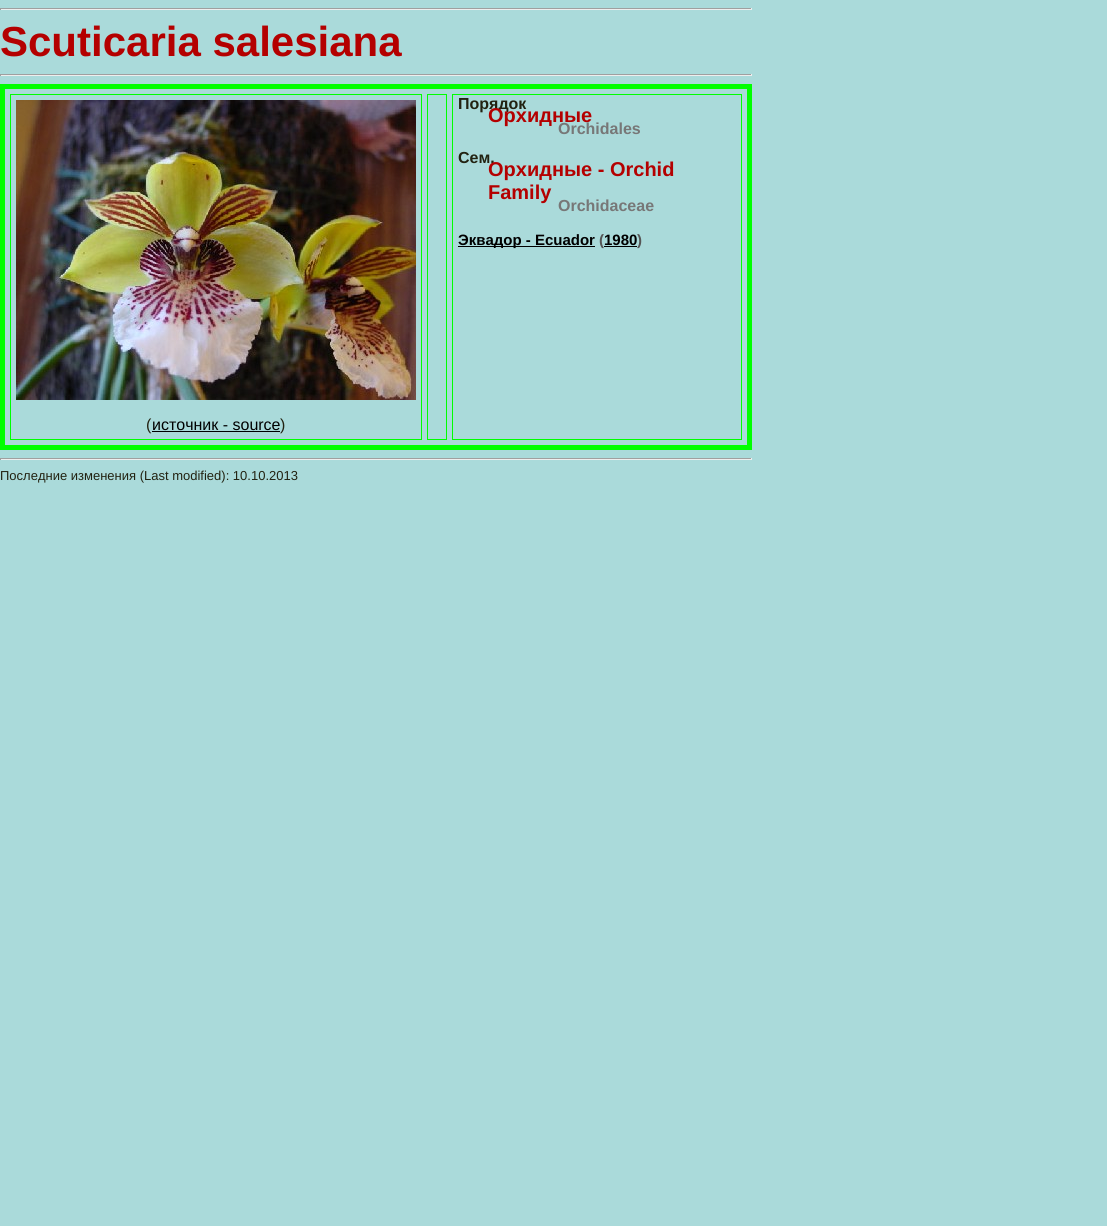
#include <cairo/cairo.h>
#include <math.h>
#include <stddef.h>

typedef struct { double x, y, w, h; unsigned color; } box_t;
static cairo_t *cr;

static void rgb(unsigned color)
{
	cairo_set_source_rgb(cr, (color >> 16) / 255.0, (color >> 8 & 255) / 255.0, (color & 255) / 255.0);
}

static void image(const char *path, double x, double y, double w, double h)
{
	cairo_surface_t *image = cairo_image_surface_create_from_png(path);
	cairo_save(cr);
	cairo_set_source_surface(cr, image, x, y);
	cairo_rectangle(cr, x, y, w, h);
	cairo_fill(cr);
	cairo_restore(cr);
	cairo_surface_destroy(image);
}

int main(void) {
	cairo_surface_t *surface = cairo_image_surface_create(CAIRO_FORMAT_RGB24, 1107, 1226);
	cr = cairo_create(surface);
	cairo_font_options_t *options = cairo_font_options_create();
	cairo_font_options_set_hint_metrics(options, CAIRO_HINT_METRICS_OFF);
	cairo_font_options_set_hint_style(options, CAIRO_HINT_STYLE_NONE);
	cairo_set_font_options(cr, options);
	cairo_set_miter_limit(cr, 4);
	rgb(0xaadada);
	cairo_paint(cr);
	{
		static const box_t items[] = {
			{0, 8, 752, 1, 0x9f9f9f},
			{751, 8, 1, 2, 0xeeeeee},
			{0, 9, 752, 1, 0xeeeeee},
			{0, 8, 1, 2, 0x9f9f9f},
			{0, 74, 752, 1, 0x9f9f9f},
			{751, 74, 1, 2, 0xeeeeee},
			{0, 75, 752, 1, 0xeeeeee},
			{0, 74, 1, 2, 0x9f9f9f},
		};
		for (size_t i = 0; i < sizeof items / sizeof *items; i++) {
			rgb(items[i].color);
			cairo_rectangle(cr, items[i].x, items[i].y, items[i].w, items[i].h);
			cairo_fill(cr);
		}
	}
	cairo_rectangle(cr, 2.5, 86.5, 747, 361);
	rgb(0x00ff00);
	cairo_set_line_width(cr, 5);
	cairo_stroke(cr);
	cairo_rectangle(cr, 427.5, 94.5, 19, 345);
	cairo_set_line_width(cr, 1);
	cairo_stroke(cr);
	cairo_rectangle(cr, 452.5, 94.5, 289, 345);
	cairo_stroke(cr);
	rgb(0x000000);
	cairo_rectangle(cr, 458, 246, 137, 1);
	cairo_fill(cr);
	cairo_rectangle(cr, 10.5, 94.5, 411, 345);
	rgb(0x00ff00);
	cairo_stroke(cr);
	image("img/1.png", 16, 100, 400, 300);
	{
		static const box_t items[] = {
			{152, 431, 128, 1, 0x000000},
			{0, 458, 752, 1, 0x9f9f9f},
			{751, 458, 1, 2, 0xeeeeee},
			{0, 459, 752, 1, 0xeeeeee},
			{0, 458, 1, 2, 0x9f9f9f},
		};
		for (size_t i = 0; i < sizeof items / sizeof *items; i++) {
			rgb(items[i].color);
			cairo_rectangle(cr, items[i].x, items[i].y, items[i].w, items[i].h);
			cairo_fill(cr);
		}
	}
	cairo_select_font_face(cr, "Liberation Sans", CAIRO_FONT_SLANT_NORMAL, CAIRO_FONT_WEIGHT_BOLD);
	cairo_set_font_size(cr, 42);
	rgb(0xb40000);
	cairo_move_to(cr, 0, 56);
	cairo_show_text(cr, "Scuticaria salesiana");
	cairo_set_font_size(cr, 16);
	rgb(0x222211);
	cairo_move_to(cr, 458, 109);
	cairo_show_text(cr, "Порядок");
	cairo_set_font_size(cr, 20);
	rgb(0xb40000);
	cairo_move_to(cr, 488, 122);
	cairo_show_text(cr, "Орхидные");
	cairo_set_font_size(cr, 16);
	rgb(0x777777);
	cairo_move_to(cr, 558, 134);
	cairo_show_text(cr, "Orchidales");
	rgb(0x222211);
	cairo_move_to(cr, 458, 163);
	cairo_show_text(cr, "Сем.");
	cairo_set_font_size(cr, 20);
	rgb(0xb40000);
	cairo_move_to(cr, 488, 176);
	cairo_show_text(cr, "Орхидные - Orchid");
	cairo_move_to(cr, 488, 199);
	cairo_show_text(cr, "Family");
	cairo_set_font_size(cr, 16);
	rgb(0x777777);
	cairo_move_to(cr, 558, 211);
	cairo_show_text(cr, "Orchidaceae");
	cairo_set_font_size(cr, 15);
	rgb(0x000000);
	cairo_move_to(cr, 458, 245);
	cairo_show_text(cr, "Эквадор - Ecuador");
	rgb(0x555555);
	cairo_move_to(cr, 599, 245);
	cairo_show_text(cr, "(");
	rgb(0x000000);
	cairo_move_to(cr, 604, 245);
	cairo_show_text(cr, "1980");
	cairo_rectangle(cr, 604, 246, 33, 1);
	cairo_fill(cr);
	rgb(0x555555);
	cairo_move_to(cr, 637, 245);
	cairo_show_text(cr, ")");
	cairo_select_font_face(cr, "Liberation Sans", CAIRO_FONT_SLANT_NORMAL, CAIRO_FONT_WEIGHT_NORMAL);
	cairo_set_font_size(cr, 16);
	rgb(0x222211);
	cairo_move_to(cr, 146, 430);
	cairo_show_text(cr, "(");
	rgb(0x000000);
	cairo_move_to(cr, 152, 430);
	cairo_show_text(cr, "источник - source");
	rgb(0x222211);
	cairo_move_to(cr, 280, 430);
	cairo_show_text(cr, ")");
	cairo_set_font_size(cr, 13);
	cairo_move_to(cr, 0, 480);
	cairo_show_text(cr, "Последние изменения (Last modified): 10.10.2013");
	cairo_surface_write_to_png(surface, "page.png");
	cairo_font_options_destroy(options);
	cairo_destroy(cr);
	cairo_surface_destroy(surface);
	return 0;
}
